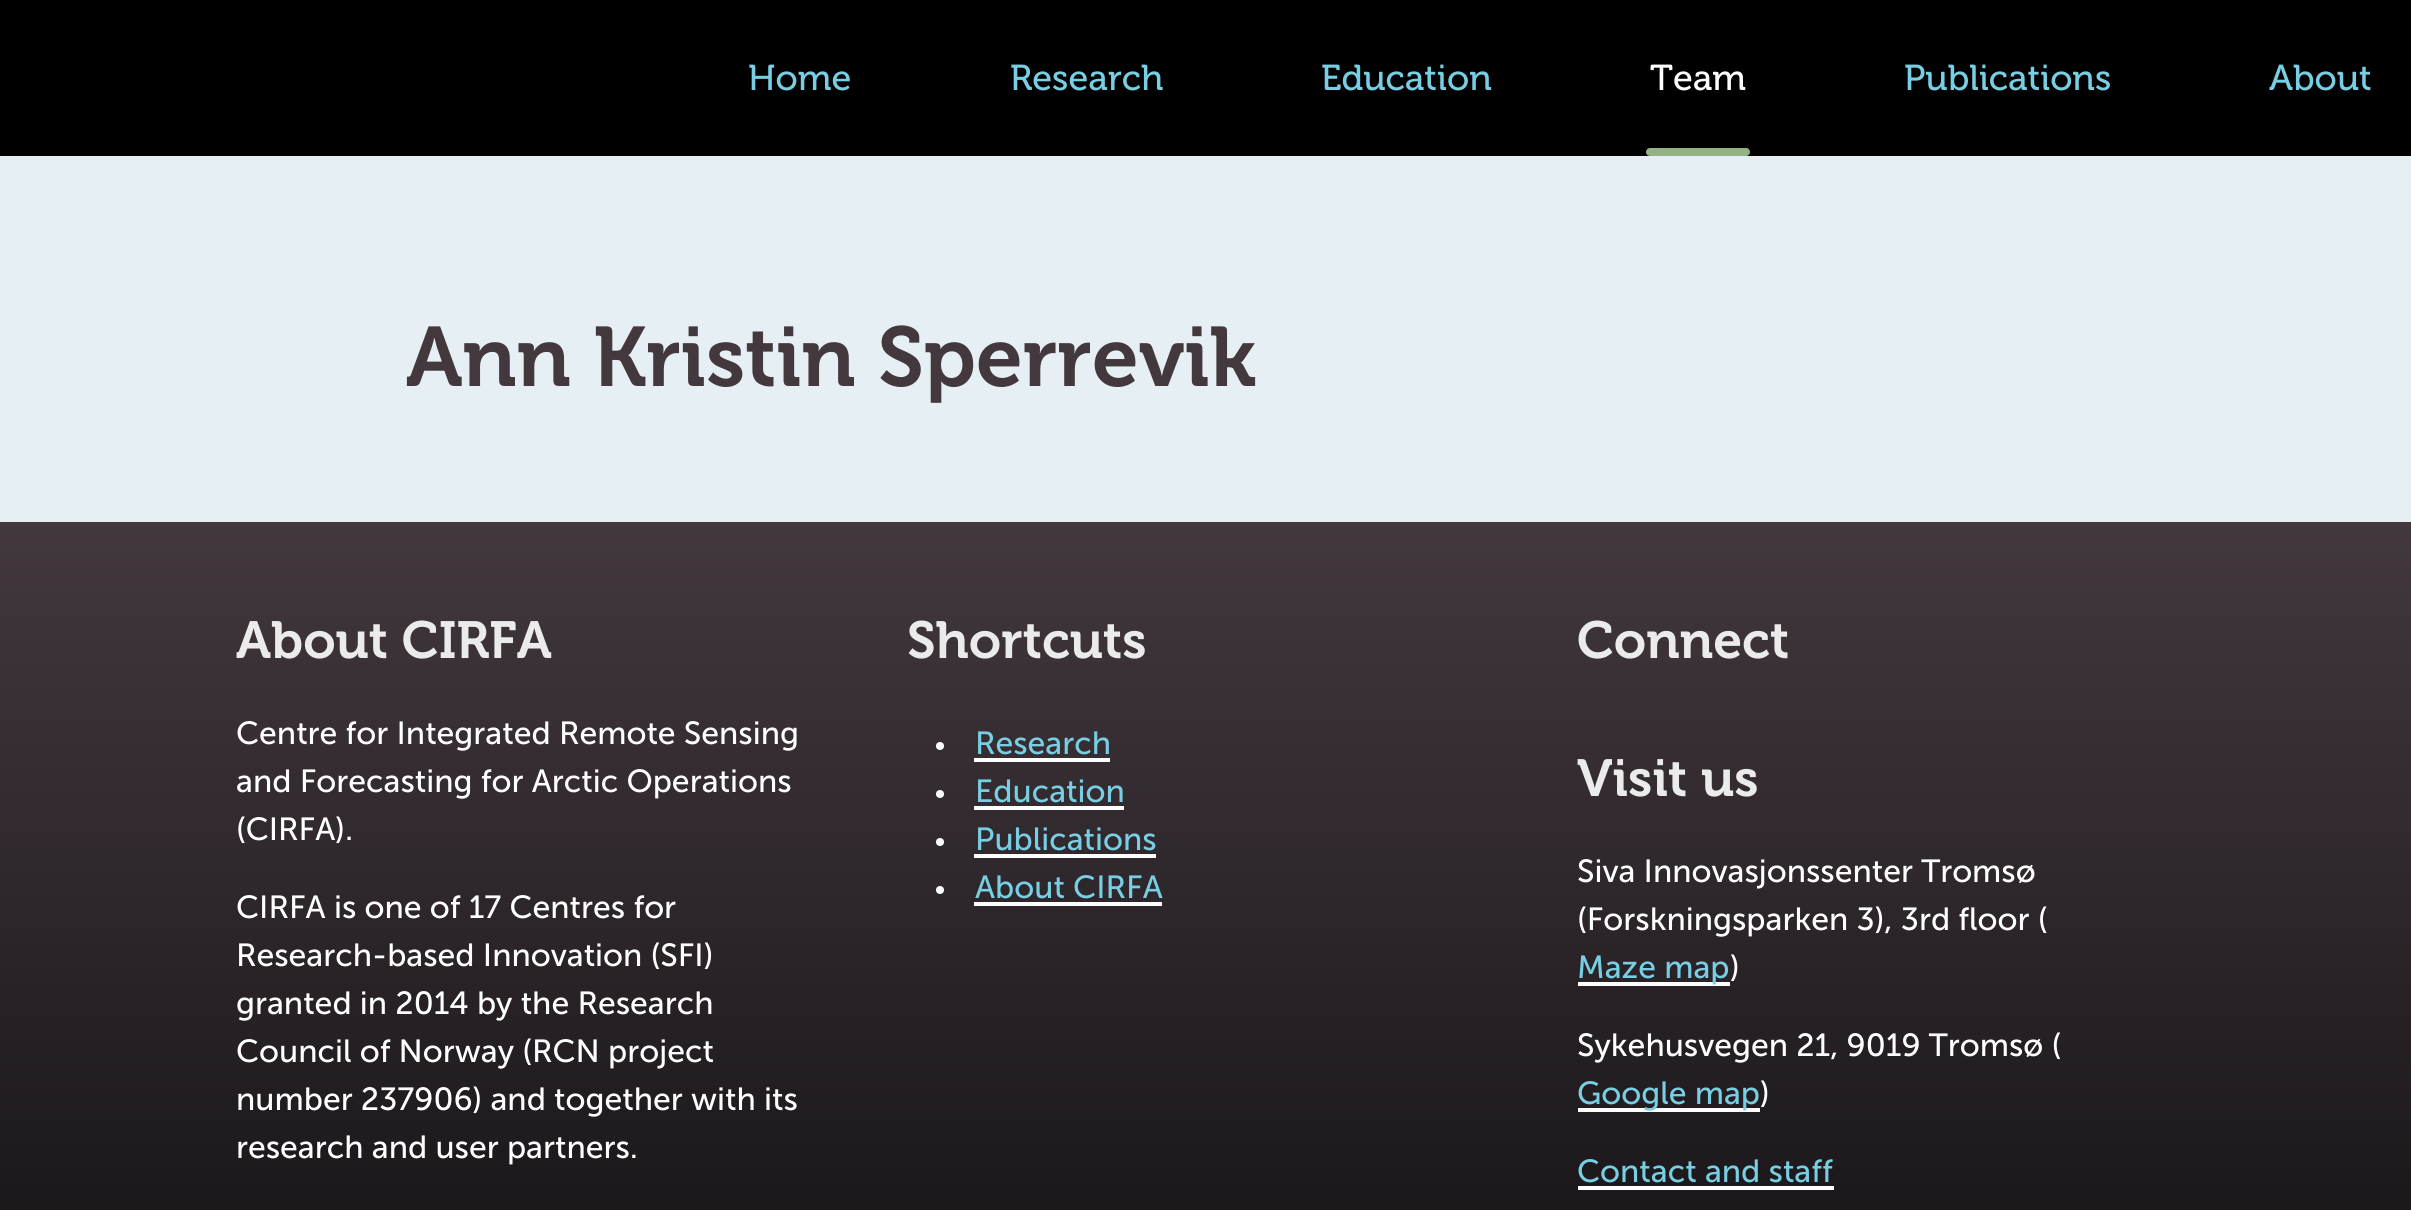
#include <cairo/cairo.h>
#include <math.h>
#include <stddef.h>

typedef struct { double x, y; const char *s; } line_t;
typedef struct { double x, y, w, h; unsigned color; } box_t;
static cairo_t *cr;

static void rgb(unsigned color)
{
	cairo_set_source_rgb(cr, (color >> 16) / 255.0, (color >> 8 & 255) / 255.0, (color & 255) / 255.0);
}

static void rrect(double x, double y, double w, double h, double r)
{
	cairo_new_sub_path(cr);
	cairo_arc(cr, x + w - r, y + h - r, r, 0, M_PI / 2);
	cairo_arc(cr, x + r, y + h - r, r, M_PI / 2, M_PI);
	cairo_arc(cr, x + r, y + r, r, M_PI, 1.5 * M_PI);
	cairo_arc(cr, x + w - r, y + r, r, 1.5 * M_PI, 2 * M_PI);
	cairo_close_path(cr);
}

int main(void) {
	cairo_surface_t *surface = cairo_image_surface_create(CAIRO_FORMAT_RGB24, 2411, 1210);
	cr = cairo_create(surface);
	cairo_font_options_t *options = cairo_font_options_create();
	cairo_font_options_set_hint_metrics(options, CAIRO_HINT_METRICS_OFF);
	cairo_font_options_set_hint_style(options, CAIRO_HINT_STYLE_NONE);
	cairo_set_font_options(cr, options);
	cairo_set_miter_limit(cr, 4);
	cairo_pattern_t *gradient;
	rgb(0xe6eff3);
	cairo_paint(cr);
	rgb(0x000000);
	cairo_rectangle(cr, 0, 0, 2411, 156);
	cairo_fill(cr);
	rgb(0x94b385);
	rrect(1646, 148, 104, 8, 4);
	cairo_fill(cr);
	gradient = cairo_pattern_create_linear(1206, 522, 1206, 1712);
	cairo_pattern_add_color_stop_rgba(gradient, 0, 0.259, 0.22, 0.243, 1);
	cairo_pattern_add_color_stop_rgba(gradient, 1, 0, 0, 0, 1);
	cairo_set_source(cr, gradient);
	cairo_pattern_destroy(gradient);
	cairo_rectangle(cr, 0, 522, 2411, 688);
	cairo_fill(cr);
	rgb(0xffffff);
	cairo_arc(cr, 940, 746, 4, 0, 2 * M_PI);
	cairo_fill(cr);
	cairo_rectangle(cr, 974, 758, 136, 4);
	cairo_fill(cr);
	cairo_arc(cr, 940, 794, 4, 0, 2 * M_PI);
	cairo_fill(cr);
	cairo_rectangle(cr, 974, 806, 150, 4);
	cairo_fill(cr);
	cairo_arc(cr, 940, 842, 4, 0, 2 * M_PI);
	cairo_fill(cr);
	cairo_rectangle(cr, 974, 854, 182, 4);
	cairo_fill(cr);
	cairo_arc(cr, 940, 890, 4, 0, 2 * M_PI);
	cairo_fill(cr);
	{
		static const box_t items[] = {
			{974, 902, 188, 4, 0xffffff},
			{1578, 982, 152, 4, 0xffffff},
			{1578, 1108, 182, 4, 0xffffff},
			{1578, 1186, 256, 4, 0xffffff},
		};
		for (size_t i = 0; i < sizeof items / sizeof *items; i++) {
			rgb(items[i].color);
			cairo_rectangle(cr, items[i].x, items[i].y, items[i].w, items[i].h);
			cairo_fill(cr);
		}
	}
	cairo_select_font_face(cr, "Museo", CAIRO_FONT_SLANT_NORMAL, CAIRO_FONT_WEIGHT_NORMAL);
	cairo_set_font_size(cr, 36);
	rgb(0x78cee3);
	{
		static const line_t items[] = {
			{748, 90, "Home"},
			{1010, 90, "Research"},
			{1321, 90, "Education"},
		};
		for (size_t i = 0; i < sizeof items / sizeof *items; i++) {
			cairo_move_to(cr, items[i].x, items[i].y);
			cairo_show_text(cr, items[i].s);
		}
	}
	rgb(0xffffff);
	cairo_move_to(cr, 1650, 90);
	cairo_show_text(cr, "Team");
	rgb(0x78cee3);
	cairo_move_to(cr, 1904, 90);
	cairo_show_text(cr, "Publications");
	cairo_move_to(cr, 2269, 90);
	cairo_show_text(cr, "About");
	cairo_select_font_face(cr, "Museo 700 SemiBold", CAIRO_FONT_SLANT_NORMAL, CAIRO_FONT_WEIGHT_NORMAL);
	cairo_set_font_size(cr, 84);
	rgb(0x42383e);
	cairo_move_to(cr, 406, 386);
	cairo_show_text(cr, "Ann Kristin Sperrevik");
	cairo_set_font_size(cr, 52);
	rgb(0xecebec);
	cairo_move_to(cr, 236, 658);
	cairo_show_text(cr, "About CIRFA");
	cairo_select_font_face(cr, "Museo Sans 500", CAIRO_FONT_SLANT_NORMAL, CAIRO_FONT_WEIGHT_NORMAL);
	cairo_set_font_size(cr, 32);
	rgb(0xffffff);
	{
		static const line_t items[] = {
			{236, 744, "Centre for Integrated Remote Sensing"},
			{236, 792, "and Forecasting for Arctic Operations"},
			{236, 840, "(CIRFA)."},
			{236, 918, "CIRFA is one of 17 Centres for"},
			{236, 966, "Research-based Innovation (SFI)"},
			{236, 1014, "granted in 2014 by the Research"},
			{236, 1062, "Council of Norway (RCN project"},
			{236, 1110, "number 237906) and together with its"},
			{236, 1158, "research and user partners."},
		};
		for (size_t i = 0; i < sizeof items / sizeof *items; i++) {
			cairo_move_to(cr, items[i].x, items[i].y);
			cairo_show_text(cr, items[i].s);
		}
	}
	cairo_select_font_face(cr, "Museo 700 SemiBold", CAIRO_FONT_SLANT_NORMAL, CAIRO_FONT_WEIGHT_NORMAL);
	cairo_set_font_size(cr, 52);
	rgb(0xecebec);
	cairo_move_to(cr, 907, 658);
	cairo_show_text(cr, "Shortcuts");
	cairo_select_font_face(cr, "Museo Sans 500", CAIRO_FONT_SLANT_NORMAL, CAIRO_FONT_WEIGHT_NORMAL);
	cairo_set_font_size(cr, 32);
	rgb(0x78cee3);
	{
		static const line_t items[] = {
			{975, 754, "Research"},
			{975, 802, "Education"},
			{975, 850, "Publications"},
			{975, 898, "About CIRFA"},
		};
		for (size_t i = 0; i < sizeof items / sizeof *items; i++) {
			cairo_move_to(cr, items[i].x, items[i].y);
			cairo_show_text(cr, items[i].s);
		}
	}
	cairo_select_font_face(cr, "Museo 700 SemiBold", CAIRO_FONT_SLANT_NORMAL, CAIRO_FONT_WEIGHT_NORMAL);
	cairo_set_font_size(cr, 52);
	rgb(0xecebec);
	cairo_move_to(cr, 1577, 658);
	cairo_show_text(cr, "Connect");
	cairo_move_to(cr, 1577, 796);
	cairo_show_text(cr, "Visit us");
	cairo_select_font_face(cr, "Museo Sans 500", CAIRO_FONT_SLANT_NORMAL, CAIRO_FONT_WEIGHT_NORMAL);
	cairo_set_font_size(cr, 32);
	rgb(0xffffff);
	cairo_move_to(cr, 1577, 882);
	cairo_show_text(cr, "Siva Innovasjonssenter Tromsø");
	cairo_move_to(cr, 1577, 930);
	cairo_show_text(cr, "(Forskningsparken 3), 3rd floor (");
	rgb(0x78cee3);
	cairo_move_to(cr, 1577, 978);
	cairo_show_text(cr, "Maze map");
	rgb(0xffffff);
	cairo_move_to(cr, 1730, 978);
	cairo_show_text(cr, ")");
	cairo_move_to(cr, 1577, 1056);
	cairo_show_text(cr, "Sykehusvegen 21, 9019 Tromsø (");
	rgb(0x78cee3);
	cairo_move_to(cr, 1577, 1104);
	cairo_show_text(cr, "Google map");
	rgb(0xffffff);
	cairo_move_to(cr, 1760, 1104);
	cairo_show_text(cr, ")");
	rgb(0x78cee3);
	cairo_move_to(cr, 1577, 1182);
	cairo_show_text(cr, "Contact and staff");
	cairo_surface_write_to_png(surface, "page.png");
	cairo_font_options_destroy(options);
	cairo_destroy(cr);
	cairo_surface_destroy(surface);
	return 0;
}
